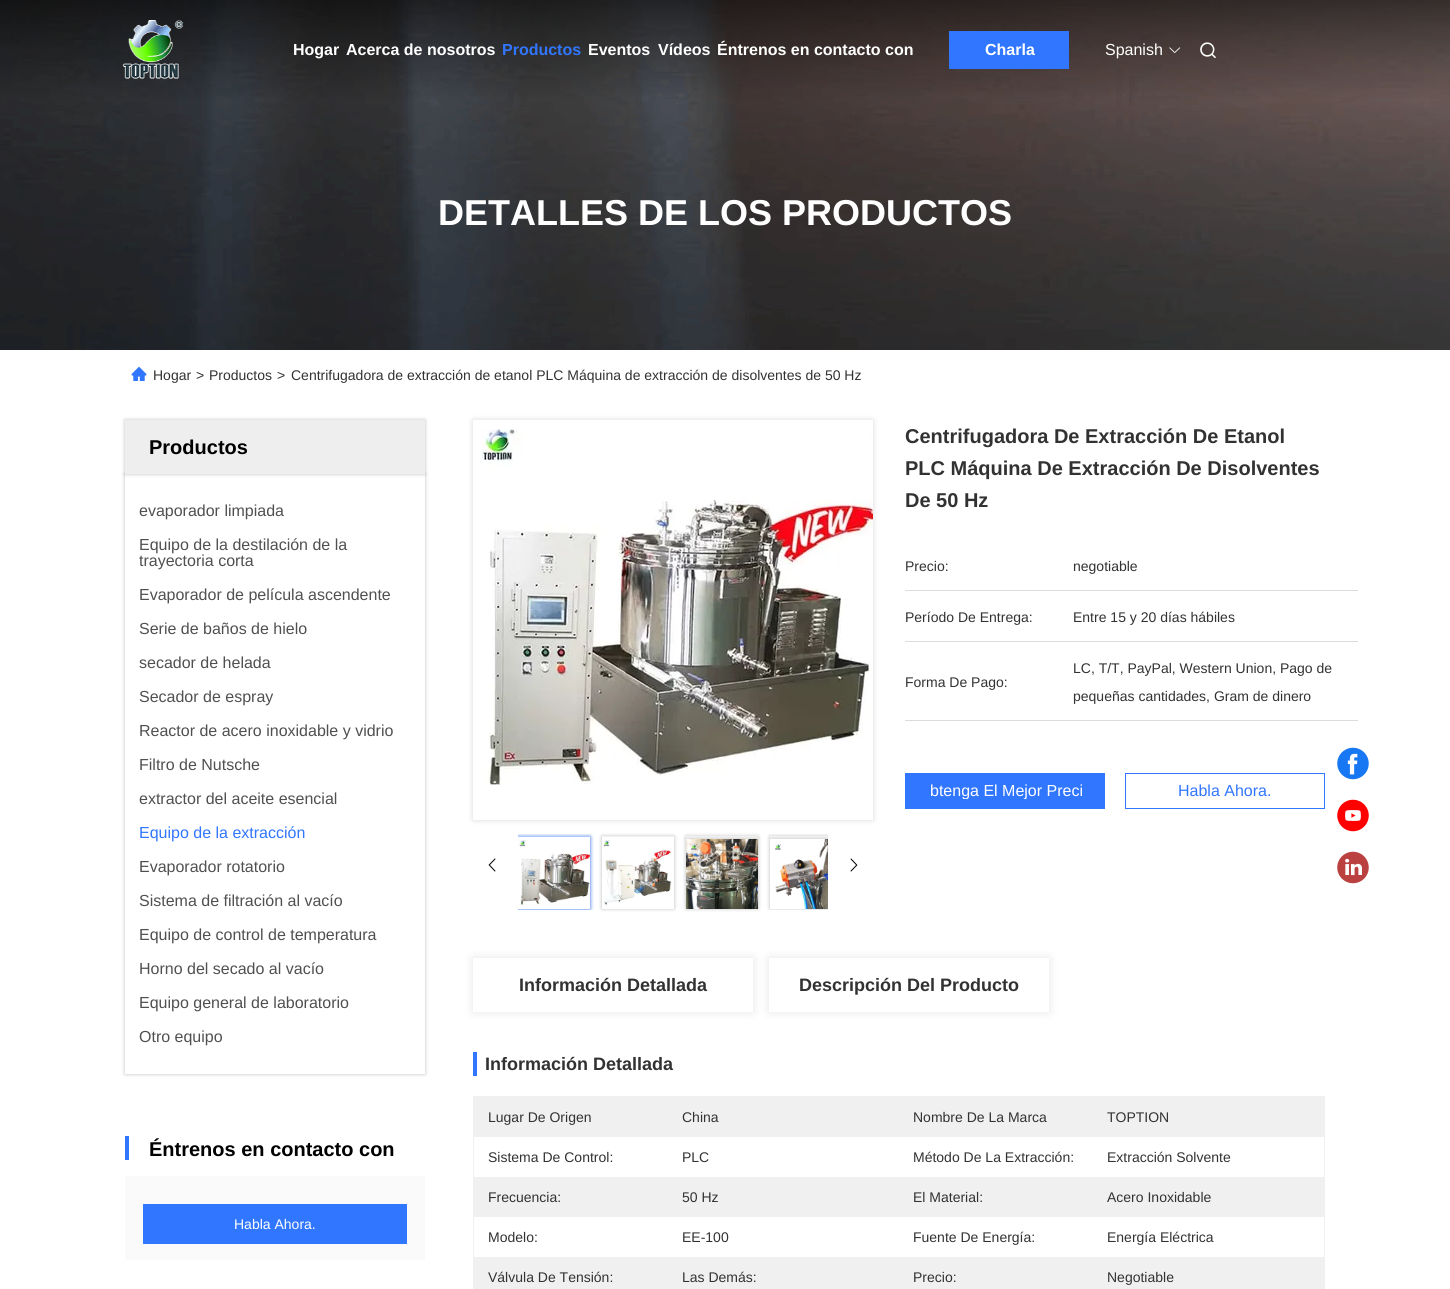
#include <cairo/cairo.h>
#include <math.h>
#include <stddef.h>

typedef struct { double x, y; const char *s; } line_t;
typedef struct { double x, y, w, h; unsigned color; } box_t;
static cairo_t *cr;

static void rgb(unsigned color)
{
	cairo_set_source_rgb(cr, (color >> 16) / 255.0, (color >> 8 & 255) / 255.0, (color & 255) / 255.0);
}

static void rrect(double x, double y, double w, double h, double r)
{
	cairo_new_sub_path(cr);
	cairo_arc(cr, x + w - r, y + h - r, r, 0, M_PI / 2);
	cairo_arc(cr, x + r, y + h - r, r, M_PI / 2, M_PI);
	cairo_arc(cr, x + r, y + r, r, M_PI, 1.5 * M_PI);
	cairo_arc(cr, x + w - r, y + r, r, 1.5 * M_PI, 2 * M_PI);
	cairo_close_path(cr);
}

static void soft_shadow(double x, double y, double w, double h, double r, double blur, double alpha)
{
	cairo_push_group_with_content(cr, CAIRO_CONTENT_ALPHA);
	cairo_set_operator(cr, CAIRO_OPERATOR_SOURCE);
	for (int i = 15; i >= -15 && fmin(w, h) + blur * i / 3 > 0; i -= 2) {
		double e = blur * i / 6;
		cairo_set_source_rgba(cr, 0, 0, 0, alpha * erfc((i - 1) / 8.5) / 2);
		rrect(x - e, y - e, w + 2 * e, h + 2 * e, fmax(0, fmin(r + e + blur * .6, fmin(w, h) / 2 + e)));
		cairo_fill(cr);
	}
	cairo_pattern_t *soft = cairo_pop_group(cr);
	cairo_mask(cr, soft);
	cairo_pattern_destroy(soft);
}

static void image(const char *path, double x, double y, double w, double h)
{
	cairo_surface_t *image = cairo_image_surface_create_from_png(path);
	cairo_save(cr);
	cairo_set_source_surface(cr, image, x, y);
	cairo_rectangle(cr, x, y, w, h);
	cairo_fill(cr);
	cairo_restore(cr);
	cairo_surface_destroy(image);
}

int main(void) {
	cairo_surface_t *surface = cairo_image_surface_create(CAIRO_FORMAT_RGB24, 1450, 1289);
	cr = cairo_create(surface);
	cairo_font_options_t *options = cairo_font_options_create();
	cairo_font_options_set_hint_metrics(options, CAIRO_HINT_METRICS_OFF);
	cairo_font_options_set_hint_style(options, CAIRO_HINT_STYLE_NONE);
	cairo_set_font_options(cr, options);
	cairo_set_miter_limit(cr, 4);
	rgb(0xffffff);
	cairo_paint(cr);
	image("img/4.png", 0, 0, 1450, 350);
	image("img/1.png", 122, 20, 62, 59);
	rgb(0x3176ff);
	cairo_rectangle(cr, 949, 31, 120, 38);
	cairo_fill(cr);
	image("img/2.png", 1169, 47, 12, 6);
	image("img/3.png", 1200, 42, 16, 17);
	image("img/5.png", 131, 366, 16, 15);
	rgb(0x000000);
	soft_shadow(125, 420, 300, 54, 0, 2, 0.25);
	cairo_save(cr);
	cairo_set_fill_rule(cr, CAIRO_FILL_RULE_EVEN_ODD);
	cairo_new_path(cr);
	cairo_move_to(cr, 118, 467);
	cairo_line_to(cr, 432, 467);
	cairo_line_to(cr, 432, 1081);
	cairo_line_to(cr, 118, 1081);
	cairo_close_path(cr);
	cairo_move_to(cr, 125, 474);
	cairo_line_to(cr, 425, 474);
	cairo_line_to(cr, 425, 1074);
	cairo_line_to(cr, 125, 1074);
	cairo_close_path(cr);
	cairo_clip(cr);
	soft_shadow(125, 474, 300, 600, 0, 2, 0.25);
	cairo_restore(cr);
	{
		static const box_t items[] = {
			{125, 420, 300, 54, 0xeeeeee},
			{125, 1136, 4, 24, 0x3176ff},
			{125, 1176, 300, 84, 0xfafafa},
			{143, 1204, 264, 40, 0x3176ff},
		};
		for (size_t i = 0; i < sizeof items / sizeof *items; i++) {
			rgb(items[i].color);
			cairo_rectangle(cr, items[i].x, items[i].y, items[i].w, items[i].h);
			cairo_fill(cr);
		}
	}
	cairo_save(cr);
	cairo_set_fill_rule(cr, CAIRO_FILL_RULE_EVEN_ODD);
	cairo_new_path(cr);
	cairo_move_to(cr, 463, 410);
	cairo_line_to(cr, 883, 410);
	cairo_line_to(cr, 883, 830);
	cairo_line_to(cr, 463, 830);
	cairo_close_path(cr);
	cairo_move_to(cr, 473, 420);
	cairo_line_to(cr, 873, 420);
	cairo_line_to(cr, 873, 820);
	cairo_line_to(cr, 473, 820);
	cairo_close_path(cr);
	cairo_clip(cr);
	rgb(0x000000);
	soft_shadow(473, 420, 400, 400, 0, 3, 0.15);
	cairo_restore(cr);
	image("img/6.png", 481, 429, 392, 356);
	image("img/7.png", 488, 858, 8, 14);
	cairo_save(cr);
	cairo_rectangle(cr, 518, 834, 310, 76);
	cairo_clip(cr);
	cairo_set_fill_rule(cr, CAIRO_FILL_RULE_EVEN_ODD);
	cairo_new_path(cr);
	cairo_move_to(cr, 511, 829);
	cairo_line_to(cr, 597, 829);
	cairo_line_to(cr, 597, 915);
	cairo_line_to(cr, 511, 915);
	cairo_close_path(cr);
	cairo_move_to(cr, 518, 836);
	cairo_line_to(cr, 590, 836);
	cairo_line_to(cr, 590, 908);
	cairo_line_to(cr, 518, 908);
	cairo_close_path(cr);
	cairo_clip(cr);
	rgb(0x000000);
	soft_shadow(518, 836, 72, 72, 0, 2, 0.15);
	cairo_restore(cr);
	cairo_save(cr);
	cairo_rectangle(cr, 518, 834, 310, 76);
	cairo_clip(cr);
	cairo_set_fill_rule(cr, CAIRO_FILL_RULE_EVEN_ODD);
	cairo_new_path(cr);
	cairo_move_to(cr, 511, 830);
	cairo_line_to(cr, 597, 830);
	cairo_line_to(cr, 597, 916);
	cairo_line_to(cr, 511, 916);
	cairo_close_path(cr);
	cairo_move_to(cr, 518, 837);
	cairo_line_to(cr, 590, 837);
	cairo_line_to(cr, 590, 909);
	cairo_line_to(cr, 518, 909);
	cairo_close_path(cr);
	cairo_clip(cr);
	rgb(0x3176ff);
	soft_shadow(518, 837, 72, 72, 0, 2, 1);
	cairo_restore(cr);
	image("img/8.png", 518, 840, 72, 69);
	cairo_save(cr);
	cairo_set_fill_rule(cr, CAIRO_FILL_RULE_EVEN_ODD);
	cairo_new_path(cr);
	cairo_move_to(cr, 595, 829);
	cairo_line_to(cr, 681, 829);
	cairo_line_to(cr, 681, 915);
	cairo_line_to(cr, 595, 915);
	cairo_close_path(cr);
	cairo_move_to(cr, 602, 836);
	cairo_line_to(cr, 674, 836);
	cairo_line_to(cr, 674, 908);
	cairo_line_to(cr, 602, 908);
	cairo_close_path(cr);
	cairo_clip(cr);
	rgb(0x000000);
	soft_shadow(602, 836, 72, 72, 0, 2, 0.15);
	cairo_restore(cr);
	cairo_save(cr);
	cairo_set_fill_rule(cr, CAIRO_FILL_RULE_EVEN_ODD);
	cairo_new_path(cr);
	cairo_move_to(cr, 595, 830);
	cairo_line_to(cr, 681, 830);
	cairo_line_to(cr, 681, 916);
	cairo_line_to(cr, 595, 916);
	cairo_close_path(cr);
	cairo_move_to(cr, 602, 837);
	cairo_line_to(cr, 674, 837);
	cairo_line_to(cr, 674, 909);
	cairo_line_to(cr, 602, 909);
	cairo_close_path(cr);
	cairo_clip(cr);
	rgb(0x000000);
	soft_shadow(602, 837, 72, 72, 0, 2, 0.15);
	cairo_restore(cr);
	image("img/9.png", 602, 840, 72, 69);
	cairo_save(cr);
	cairo_set_fill_rule(cr, CAIRO_FILL_RULE_EVEN_ODD);
	cairo_new_path(cr);
	cairo_move_to(cr, 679, 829);
	cairo_line_to(cr, 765, 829);
	cairo_line_to(cr, 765, 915);
	cairo_line_to(cr, 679, 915);
	cairo_close_path(cr);
	cairo_move_to(cr, 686, 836);
	cairo_line_to(cr, 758, 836);
	cairo_line_to(cr, 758, 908);
	cairo_line_to(cr, 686, 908);
	cairo_close_path(cr);
	cairo_clip(cr);
	rgb(0x000000);
	soft_shadow(686, 836, 72, 72, 0, 2, 0.15);
	cairo_restore(cr);
	rgb(0x000000);
	soft_shadow(686, 837, 72, 72, 0, 2, 0.15);
	image("img/10.png", 686, 839, 72, 70);
	cairo_save(cr);
	cairo_rectangle(cr, 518, 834, 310, 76);
	cairo_clip(cr);
	cairo_set_fill_rule(cr, CAIRO_FILL_RULE_EVEN_ODD);
	cairo_new_path(cr);
	cairo_move_to(cr, 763, 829);
	cairo_line_to(cr, 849, 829);
	cairo_line_to(cr, 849, 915);
	cairo_line_to(cr, 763, 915);
	cairo_close_path(cr);
	cairo_move_to(cr, 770, 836);
	cairo_line_to(cr, 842, 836);
	cairo_line_to(cr, 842, 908);
	cairo_line_to(cr, 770, 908);
	cairo_close_path(cr);
	cairo_clip(cr);
	soft_shadow(770, 836, 72, 72, 0, 2, 0.15);
	cairo_restore(cr);
	cairo_save(cr);
	cairo_rectangle(cr, 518, 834, 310, 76);
	cairo_clip(cr);
	soft_shadow(770, 837, 72, 72, 0, 2, 0.15);
	cairo_restore(cr);
	image("img/11.png", 770, 839, 58, 70);
	image("img/12.png", 850, 858, 8, 14);
	{
		static const box_t items[] = {
			{905, 590, 453, 1, 0xdcdcdc},
			{905, 641, 453, 1, 0xdcdcdc},
			{905, 720, 453, 1, 0xdcdcdc},
			{905, 773, 200, 36, 0x3176ff},
		};
		for (size_t i = 0; i < sizeof items / sizeof *items; i++) {
			rgb(items[i].color);
			cairo_rectangle(cr, items[i].x, items[i].y, items[i].w, items[i].h);
			cairo_fill(cr);
		}
	}
	cairo_rectangle(cr, 1125.5, 773.5, 199, 35);
	cairo_set_line_width(cr, 1);
	cairo_stroke(cr);
	cairo_save(cr);
	cairo_set_fill_rule(cr, CAIRO_FILL_RULE_EVEN_ODD);
	cairo_new_path(cr);
	cairo_move_to(cr, 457, 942);
	cairo_line_to(cr, 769, 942);
	cairo_line_to(cr, 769, 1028);
	cairo_line_to(cr, 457, 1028);
	cairo_close_path(cr);
	cairo_move_to(cr, 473, 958);
	cairo_line_to(cr, 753, 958);
	cairo_line_to(cr, 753, 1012);
	cairo_line_to(cr, 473, 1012);
	cairo_close_path(cr);
	cairo_clip(cr);
	rgb(0x000000);
	soft_shadow(473, 958, 280, 54, 0, 5, 0.1);
	cairo_restore(cr);
	cairo_save(cr);
	cairo_set_fill_rule(cr, CAIRO_FILL_RULE_EVEN_ODD);
	cairo_new_path(cr);
	cairo_move_to(cr, 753, 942);
	cairo_line_to(cr, 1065, 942);
	cairo_line_to(cr, 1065, 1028);
	cairo_line_to(cr, 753, 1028);
	cairo_close_path(cr);
	cairo_move_to(cr, 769, 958);
	cairo_line_to(cr, 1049, 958);
	cairo_line_to(cr, 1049, 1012);
	cairo_line_to(cr, 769, 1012);
	cairo_close_path(cr);
	cairo_clip(cr);
	rgb(0x000000);
	soft_shadow(769, 958, 280, 54, 0, 5, 0.1);
	cairo_restore(cr);
	cairo_rectangle(cr, 473, 1052, 4, 24);
	cairo_fill(cr);
	cairo_rectangle(cr, 473.5, 1096.5, 851, 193);
	rgb(0xf0f0f0);
	cairo_stroke(cr);
	{
		static const box_t items[] = {
			{474, 1097, 850, 40, 0xf0f0f0},
			{474, 1177, 850, 40, 0xf0f0f0},
			{474, 1257, 850, 32, 0xf0f0f0},
		};
		for (size_t i = 0; i < sizeof items / sizeof *items; i++) {
			rgb(items[i].color);
			cairo_rectangle(cr, items[i].x, items[i].y, items[i].w, items[i].h);
			cairo_fill(cr);
		}
	}
	image("img/13.png", 1337, 747, 32, 33);
	image("img/14.png", 1337, 799, 32, 33);
	image("img/15.png", 1337, 851, 32, 33);
	cairo_select_font_face(cr, "Liberation Sans", CAIRO_FONT_SLANT_NORMAL, CAIRO_FONT_WEIGHT_BOLD);
	cairo_set_font_size(cr, 16);
	rgb(0xffffff);
	cairo_move_to(cr, 293, 55);
	cairo_show_text(cr, "Hogar");
	cairo_move_to(cr, 346, 55);
	cairo_show_text(cr, "Acerca de nosotros");
	rgb(0x3176ff);
	cairo_move_to(cr, 502, 55);
	cairo_show_text(cr, "Productos");
	rgb(0xffffff);
	{
		static const line_t items[] = {
			{588, 55, "Eventos"},
			{658, 55, "Vídeos"},
			{717, 55, "Éntrenos en contacto con"},
			{985, 55, "Charla"},
		};
		for (size_t i = 0; i < sizeof items / sizeof *items; i++) {
			cairo_move_to(cr, items[i].x, items[i].y);
			cairo_show_text(cr, items[i].s);
		}
	}
	cairo_select_font_face(cr, "Liberation Sans", CAIRO_FONT_SLANT_NORMAL, CAIRO_FONT_WEIGHT_NORMAL);
	cairo_move_to(cr, 1105, 55);
	cairo_show_text(cr, "Spanish");
	cairo_select_font_face(cr, "Liberation Sans", CAIRO_FONT_SLANT_NORMAL, CAIRO_FONT_WEIGHT_BOLD);
	cairo_set_font_size(cr, 36);
	cairo_move_to(cr, 438, 225);
	cairo_show_text(cr, "DETALLES DE LOS PRODUCTOS");
	cairo_select_font_face(cr, "Liberation Sans", CAIRO_FONT_SLANT_NORMAL, CAIRO_FONT_WEIGHT_NORMAL);
	cairo_set_font_size(cr, 14);
	rgb(0x323232);
	{
		static const line_t items[] = {
			{153, 380, "Hogar"},
			{196, 380, ">"},
			{209, 380, "Productos"},
			{277, 380, ">"},
			{291, 380, "Centrifugadora de extracción de etanol PLC Máquina de extracción de disolventes de 50 Hz"},
		};
		for (size_t i = 0; i < sizeof items / sizeof *items; i++) {
			cairo_move_to(cr, items[i].x, items[i].y);
			cairo_show_text(cr, items[i].s);
		}
	}
	cairo_select_font_face(cr, "Liberation Sans", CAIRO_FONT_SLANT_NORMAL, CAIRO_FONT_WEIGHT_BOLD);
	cairo_set_font_size(cr, 20);
	rgb(0x000000);
	cairo_move_to(cr, 149, 454);
	cairo_show_text(cr, "Productos");
	cairo_select_font_face(cr, "Liberation Sans", CAIRO_FONT_SLANT_NORMAL, CAIRO_FONT_WEIGHT_NORMAL);
	cairo_set_font_size(cr, 16);
	rgb(0x505050);
	{
		static const line_t items[] = {
			{139, 516, "evaporador limpiada"},
			{139, 550, "Equipo de la destilación de la"},
			{139, 566, "trayectoria corta"},
			{139, 600, "Evaporador de película ascendente"},
			{139, 634, "Serie de baños de hielo"},
			{139, 668, "secador de helada"},
			{139, 702, "Secador de espray"},
			{139, 736, "Reactor de acero inoxidable y vidrio"},
			{139, 770, "Filtro de Nutsche"},
			{139, 804, "extractor del aceite esencial"},
		};
		for (size_t i = 0; i < sizeof items / sizeof *items; i++) {
			cairo_move_to(cr, items[i].x, items[i].y);
			cairo_show_text(cr, items[i].s);
		}
	}
	rgb(0x3176ff);
	cairo_move_to(cr, 139, 838);
	cairo_show_text(cr, "Equipo de la extracción");
	rgb(0x505050);
	{
		static const line_t items[] = {
			{139, 872, "Evaporador rotatorio"},
			{139, 906, "Sistema de filtración al vacío"},
			{139, 940, "Equipo de control de temperatura"},
			{139, 974, "Horno del secado al vacío"},
			{139, 1008, "Equipo general de laboratorio"},
			{139, 1042, "Otro equipo"},
		};
		for (size_t i = 0; i < sizeof items / sizeof *items; i++) {
			cairo_move_to(cr, items[i].x, items[i].y);
			cairo_show_text(cr, items[i].s);
		}
	}
	cairo_select_font_face(cr, "Liberation Sans", CAIRO_FONT_SLANT_NORMAL, CAIRO_FONT_WEIGHT_BOLD);
	cairo_set_font_size(cr, 20);
	rgb(0x000000);
	cairo_move_to(cr, 149, 1156);
	cairo_show_text(cr, "Éntrenos en contacto con");
	cairo_select_font_face(cr, "Liberation Sans", CAIRO_FONT_SLANT_NORMAL, CAIRO_FONT_WEIGHT_NORMAL);
	cairo_set_font_size(cr, 14);
	rgb(0xffffff);
	cairo_move_to(cr, 234, 1229);
	cairo_show_text(cr, "Habla Ahora.");
	cairo_select_font_face(cr, "Liberation Sans", CAIRO_FONT_SLANT_NORMAL, CAIRO_FONT_WEIGHT_BOLD);
	cairo_set_font_size(cr, 20);
	rgb(0x323232);
	{
		static const line_t items[] = {
			{905, 443, "Centrifugadora De Extracción De Etanol"},
			{905, 475, "PLC Máquina De Extracción De Disolventes"},
			{905, 507, "De 50 Hz"},
		};
		for (size_t i = 0; i < sizeof items / sizeof *items; i++) {
			cairo_move_to(cr, items[i].x, items[i].y);
			cairo_show_text(cr, items[i].s);
		}
	}
	cairo_select_font_face(cr, "Liberation Sans", CAIRO_FONT_SLANT_NORMAL, CAIRO_FONT_WEIGHT_NORMAL);
	cairo_set_font_size(cr, 14);
	{
		static const line_t items[] = {
			{905, 571, "Precio:"},
			{1073, 571, "negotiable"},
			{905, 622, "Período De Entrega:"},
			{1073, 622, "Entre 15 y 20 días hábiles"},
			{905, 687, "Forma De Pago:"},
			{1073, 673, "LC, T/T, PayPal, Western Union, Pago de"},
			{1073, 701, "pequeñas cantidades, Gram de dinero"},
		};
		for (size_t i = 0; i < sizeof items / sizeof *items; i++) {
			cairo_move_to(cr, items[i].x, items[i].y);
			cairo_show_text(cr, items[i].s);
		}
	}
	cairo_save(cr);
	cairo_rectangle(cr, 925, 783, 160, 16);
	cairo_clip(cr);
	cairo_set_font_size(cr, 16);
	rgb(0xffffff);
	cairo_move_to(cr, 930, 796);
	cairo_show_text(cr, "btenga El Mejor Preci");
	cairo_restore(cr);
	cairo_set_font_size(cr, 16);
	rgb(0x3176ff);
	cairo_move_to(cr, 1178, 796);
	cairo_show_text(cr, "Habla Ahora.");
	cairo_select_font_face(cr, "Liberation Sans", CAIRO_FONT_SLANT_NORMAL, CAIRO_FONT_WEIGHT_BOLD);
	cairo_set_font_size(cr, 18);
	rgb(0x323232);
	{
		static const line_t items[] = {
			{519, 991, "Información Detallada"},
			{799, 991, "Descripción Del Producto"},
			{485, 1070, "Información Detallada"},
		};
		for (size_t i = 0; i < sizeof items / sizeof *items; i++) {
			cairo_move_to(cr, items[i].x, items[i].y);
			cairo_show_text(cr, items[i].s);
		}
	}
	cairo_select_font_face(cr, "Liberation Sans", CAIRO_FONT_SLANT_NORMAL, CAIRO_FONT_WEIGHT_NORMAL);
	cairo_set_font_size(cr, 14);
	{
		static const line_t items[] = {
			{488, 1122, "Lugar De Origen"},
			{682, 1122, "China"},
			{913, 1122, "Nombre De La Marca"},
			{1107, 1122, "TOPTION"},
			{488, 1162, "Sistema De Control:"},
			{682, 1162, "PLC"},
			{913, 1162, "Método De La Extracción:"},
			{1107, 1162, "Extracción Solvente"},
			{488, 1202, "Frecuencia:"},
			{682, 1202, "50 Hz"},
			{913, 1202, "El Material:"},
			{1107, 1202, "Acero Inoxidable"},
			{488, 1242, "Modelo:"},
			{682, 1242, "EE-100"},
			{913, 1242, "Fuente De Energía:"},
			{1107, 1242, "Energía Eléctrica"},
			{488, 1282, "Válvula De Tensión:"},
			{682, 1282, "Las Demás:"},
			{913, 1282, "Precio:"},
			{1107, 1282, "Negotiable"},
		};
		for (size_t i = 0; i < sizeof items / sizeof *items; i++) {
			cairo_move_to(cr, items[i].x, items[i].y);
			cairo_show_text(cr, items[i].s);
		}
	}
	cairo_surface_write_to_png(surface, "page.png");
	cairo_font_options_destroy(options);
	cairo_destroy(cr);
	cairo_surface_destroy(surface);
	return 0;
}
